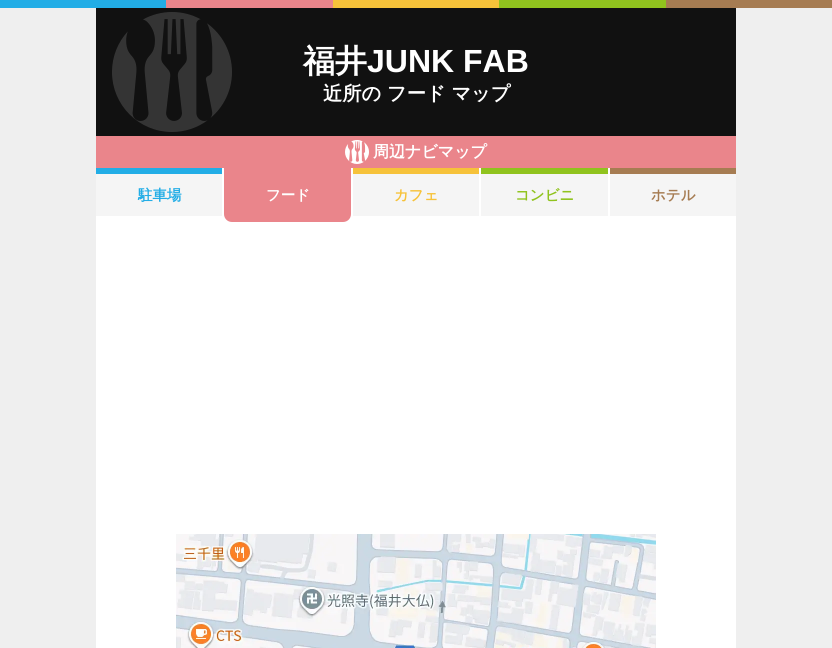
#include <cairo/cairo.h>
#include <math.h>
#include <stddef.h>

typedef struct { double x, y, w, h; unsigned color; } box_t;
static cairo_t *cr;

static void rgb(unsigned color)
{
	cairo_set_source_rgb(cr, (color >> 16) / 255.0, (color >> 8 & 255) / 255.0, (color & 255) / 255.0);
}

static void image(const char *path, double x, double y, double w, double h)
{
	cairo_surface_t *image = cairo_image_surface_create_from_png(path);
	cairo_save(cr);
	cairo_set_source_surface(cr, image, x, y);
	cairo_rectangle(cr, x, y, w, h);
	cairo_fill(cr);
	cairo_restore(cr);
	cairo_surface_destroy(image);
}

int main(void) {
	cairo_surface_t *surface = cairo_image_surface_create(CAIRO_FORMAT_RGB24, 832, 648);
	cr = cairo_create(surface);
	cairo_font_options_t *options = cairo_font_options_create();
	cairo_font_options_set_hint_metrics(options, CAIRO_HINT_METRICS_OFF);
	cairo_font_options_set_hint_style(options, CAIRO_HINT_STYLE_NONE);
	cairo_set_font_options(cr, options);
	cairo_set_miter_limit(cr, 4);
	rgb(0xefefef);
	cairo_paint(cr);
	{
		static const box_t items[] = {
			{0, 0, 166, 8, 0x22ade6},
			{166, 0, 167, 8, 0xea858b},
			{333, 0, 166, 8, 0xf6c23a},
			{499, 0, 167, 8, 0x90c31e},
			{666, 0, 166, 8, 0xa67c52},
			{96, 168, 640, 480, 0xffffff},
			{96, 8, 640, 128, 0x111111},
		};
		for (size_t i = 0; i < sizeof items / sizeof *items; i++) {
			rgb(items[i].color);
			cairo_rectangle(cr, items[i].x, items[i].y, items[i].w, items[i].h);
			cairo_fill(cr);
		}
	}
	image("img/1.png", 112, 12, 120, 120);
	rgb(0xea858b);
	cairo_rectangle(cr, 96, 136, 640, 32);
	cairo_fill(cr);
	image("img/2.png", 345, 140, 24, 24);
	rgb(0xf5f5f5);
	cairo_rectangle(cr, 96, 174, 126, 42);
	cairo_fill(cr);
	rgb(0x22ade6);
	cairo_rectangle(cr, 96, 168, 126, 6);
	cairo_fill(cr);
	rgb(0xea858b);
	cairo_new_path(cr);
	cairo_move_to(cr, 224, 168);
	cairo_line_to(cr, 351, 168);
	cairo_line_to(cr, 351, 214);
	cairo_curve_to(cr, 351, 218.5, 347.5, 222, 343, 222);
	cairo_line_to(cr, 232, 222);
	cairo_curve_to(cr, 227.5, 222, 224, 218.5, 224, 214);
	cairo_close_path(cr);
	cairo_fill(cr);
	{
		static const box_t items[] = {
			{353, 174, 126, 42, 0xf5f5f5},
			{353, 168, 126, 6, 0xf6c23a},
			{481, 174, 127, 42, 0xf5f5f5},
			{481, 168, 127, 6, 0x90c31e},
			{610, 174, 126, 42, 0xf5f5f5},
			{610, 168, 126, 6, 0xa67c52},
		};
		for (size_t i = 0; i < sizeof items / sizeof *items; i++) {
			rgb(items[i].color);
			cairo_rectangle(cr, items[i].x, items[i].y, items[i].w, items[i].h);
			cairo_fill(cr);
		}
	}
	image("img/3.png", 176, 534, 480, 114);
	cairo_select_font_face(cr, "WenQuanYi Zen Hei", CAIRO_FONT_SLANT_NORMAL, CAIRO_FONT_WEIGHT_BOLD);
	cairo_set_font_size(cr, 32);
	rgb(0xffffff);
	cairo_move_to(cr, 303, 72);
	cairo_show_text(cr, "福井");
	cairo_select_font_face(cr, "Liberation Sans", CAIRO_FONT_SLANT_NORMAL, CAIRO_FONT_WEIGHT_BOLD);
	cairo_move_to(cr, 367, 72);
	cairo_show_text(cr, "JUNK FAB");
	cairo_select_font_face(cr, "WenQuanYi Zen Hei", CAIRO_FONT_SLANT_NORMAL, CAIRO_FONT_WEIGHT_BOLD);
	cairo_set_font_size(cr, 19.25);
	cairo_move_to(cr, 323, 100);
	cairo_show_text(cr, "近所の フード マップ");
	cairo_set_font_size(cr, 16);
	cairo_move_to(cr, 373, 157);
	cairo_show_text(cr, "周辺ナビマップ");
	cairo_set_font_size(cr, 14.5);
	rgb(0x22ade6);
	cairo_move_to(cr, 138, 200);
	cairo_show_text(cr, "駐車場");
	rgb(0xffffff);
	cairo_move_to(cr, 266, 200);
	cairo_show_text(cr, "フード");
	rgb(0xf6c23a);
	cairo_move_to(cr, 394, 200);
	cairo_show_text(cr, "カフェ");
	rgb(0x90c31e);
	cairo_move_to(cr, 515, 200);
	cairo_show_text(cr, "コンビニ");
	rgb(0xa67c52);
	cairo_move_to(cr, 651, 200);
	cairo_show_text(cr, "ホテル");
	cairo_surface_write_to_png(surface, "page.png");
	cairo_font_options_destroy(options);
	cairo_destroy(cr);
	cairo_surface_destroy(surface);
	return 0;
}
